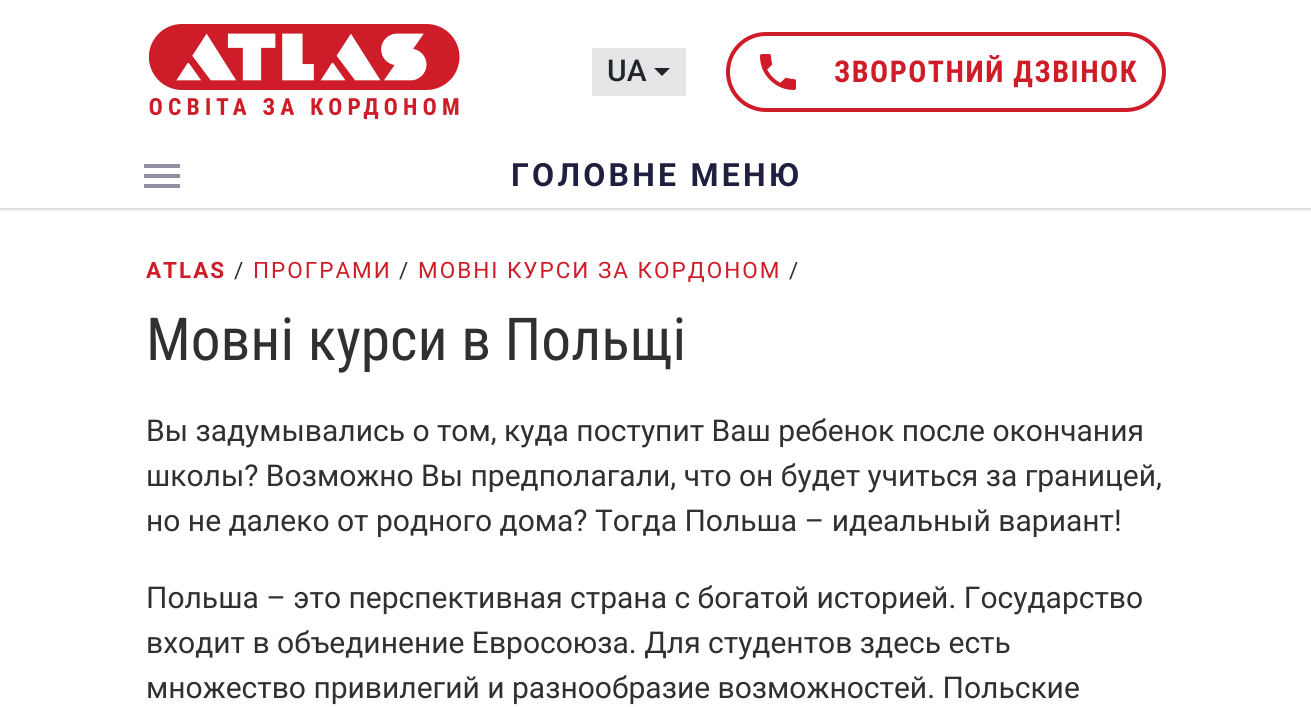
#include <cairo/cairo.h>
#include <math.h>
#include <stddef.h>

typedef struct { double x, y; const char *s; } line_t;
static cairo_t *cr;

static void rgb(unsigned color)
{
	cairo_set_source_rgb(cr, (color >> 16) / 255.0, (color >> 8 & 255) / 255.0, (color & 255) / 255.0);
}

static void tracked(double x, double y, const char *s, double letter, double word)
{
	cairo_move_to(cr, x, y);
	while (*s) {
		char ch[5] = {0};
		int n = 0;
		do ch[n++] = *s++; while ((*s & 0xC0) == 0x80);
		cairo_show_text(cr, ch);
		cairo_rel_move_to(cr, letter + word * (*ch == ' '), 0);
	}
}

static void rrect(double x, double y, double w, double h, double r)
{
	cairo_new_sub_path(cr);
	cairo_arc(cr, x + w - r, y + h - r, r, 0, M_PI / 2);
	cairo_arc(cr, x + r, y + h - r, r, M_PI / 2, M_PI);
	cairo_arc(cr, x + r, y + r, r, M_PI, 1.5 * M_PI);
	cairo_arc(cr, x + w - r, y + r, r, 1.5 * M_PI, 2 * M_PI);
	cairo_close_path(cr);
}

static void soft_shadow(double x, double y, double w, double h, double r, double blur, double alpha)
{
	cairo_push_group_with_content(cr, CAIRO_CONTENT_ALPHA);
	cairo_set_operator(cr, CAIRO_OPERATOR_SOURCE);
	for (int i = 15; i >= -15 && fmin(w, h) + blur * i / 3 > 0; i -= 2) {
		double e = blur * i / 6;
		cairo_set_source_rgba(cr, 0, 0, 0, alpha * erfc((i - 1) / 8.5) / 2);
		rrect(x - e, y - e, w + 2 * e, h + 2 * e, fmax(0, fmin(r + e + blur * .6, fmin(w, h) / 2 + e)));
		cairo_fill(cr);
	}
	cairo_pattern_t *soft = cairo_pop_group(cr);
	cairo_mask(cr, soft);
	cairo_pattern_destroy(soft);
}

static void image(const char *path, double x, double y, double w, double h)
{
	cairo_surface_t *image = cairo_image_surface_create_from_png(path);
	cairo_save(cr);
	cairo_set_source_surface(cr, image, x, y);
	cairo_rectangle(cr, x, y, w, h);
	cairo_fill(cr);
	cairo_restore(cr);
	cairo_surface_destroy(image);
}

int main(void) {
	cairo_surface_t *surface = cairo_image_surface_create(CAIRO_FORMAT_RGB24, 1311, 707);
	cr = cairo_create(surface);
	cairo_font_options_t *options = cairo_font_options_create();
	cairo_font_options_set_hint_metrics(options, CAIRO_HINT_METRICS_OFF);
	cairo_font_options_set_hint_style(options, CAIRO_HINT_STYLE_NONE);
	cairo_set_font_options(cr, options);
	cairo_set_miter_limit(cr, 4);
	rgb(0xffffff);
	cairo_paint(cr);
	cairo_save(cr);
	cairo_rectangle(cr, 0, 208, 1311, 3);
	cairo_clip(cr);
	rgb(0x000000);
	soft_shadow(0, 2, 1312, 208, 0, 1, 0.15);
	cairo_restore(cr);
	image("img/1.png", 148, 24, 312, 95);
	rgb(0xe4e5e7);
	cairo_rectangle(cr, 592, 48, 94, 48);
	cairo_fill(cr);
	rgb(0x212529);
	cairo_new_path(cr);
	cairo_move_to(cr, 654, 68);
	cairo_line_to(cr, 670, 68);
	cairo_line_to(cr, 662, 76);
	cairo_close_path(cr);
	cairo_fill(cr);
	rrect(728, 34, 436, 76, 38);
	rgb(0xce1d29);
	cairo_set_line_width(cr, 4);
	cairo_stroke(cr);
	image("img/2.png", 760, 54, 36, 36);
	rgb(0x8f8f9f);
	cairo_new_path(cr);
	cairo_move_to(cr, 144, 164);
	cairo_line_to(cr, 180, 164);
	cairo_line_to(cr, 180, 168);
	cairo_line_to(cr, 144, 168);
	cairo_close_path(cr);
	cairo_move_to(cr, 144, 178);
	cairo_line_to(cr, 144, 174);
	cairo_line_to(cr, 180, 174);
	cairo_line_to(cr, 180, 178);
	cairo_close_path(cr);
	cairo_move_to(cr, 144, 188);
	cairo_line_to(cr, 144, 184);
	cairo_line_to(cr, 180, 184);
	cairo_line_to(cr, 180, 188);
	cairo_close_path(cr);
	cairo_fill(cr);
	cairo_select_font_face(cr, "Roboto Medium", CAIRO_FONT_SLANT_NORMAL, CAIRO_FONT_WEIGHT_NORMAL);
	cairo_set_font_size(cr, 30);
	rgb(0x212529);
	cairo_move_to(cr, 607, 81);
	cairo_show_text(cr, "UA");
	cairo_select_font_face(cr, "Roboto Condensed", CAIRO_FONT_SLANT_NORMAL, CAIRO_FONT_WEIGHT_BOLD);
	rgb(0xce1d29);
	tracked(834, 82, "ЗВОРОТНИЙ ДЗВІНОК", 1.5, 0);
	cairo_select_font_face(cr, "Roboto", CAIRO_FONT_SLANT_NORMAL, CAIRO_FONT_WEIGHT_BOLD);
	cairo_set_font_size(cr, 32);
	rgb(0x1f1f3f);
	tracked(511, 186, "ГОЛОВНЕ МЕНЮ", 3.25, 0);
	cairo_set_font_size(cr, 22.5);
	rgb(0xce1d29);
	tracked(146, 278, "ATLAS", 2, 0);
	cairo_select_font_face(cr, "Roboto", CAIRO_FONT_SLANT_NORMAL, CAIRO_FONT_WEIGHT_NORMAL);
	rgb(0x303030);
	tracked(234, 278, "/", 2, 0);
	rgb(0xce1d29);
	tracked(253, 278, "ПРОГРАМИ", 2, 0);
	rgb(0x303030);
	tracked(399, 278, "/", 2, 0);
	rgb(0xce1d29);
	tracked(418, 278, "МОВНІ КУРСИ ЗА КОРДОНОМ", 2, 0);
	rgb(0x303030);
	tracked(789, 278, "/", 2, 0);
	cairo_select_font_face(cr, "Roboto Condensed", CAIRO_FONT_SLANT_NORMAL, CAIRO_FONT_WEIGHT_NORMAL);
	cairo_set_font_size(cr, 59.25);
	cairo_move_to(cr, 146, 360);
	cairo_show_text(cr, "Мовні курси в Польщі");
	cairo_select_font_face(cr, "Roboto", CAIRO_FONT_SLANT_NORMAL, CAIRO_FONT_WEIGHT_NORMAL);
	cairo_set_font_size(cr, 30);
	{
		static const line_t items[] = {
			{146, 441, "Вы задумывались о том, куда поступит Ваш ребенок после окончания"},
			{146, 486, "школы? Возможно Вы предполагали, что он будет учиться за границей,"},
			{146, 531, "но не далеко от родного дома? Тогда Польша – идеальный вариант!"},
			{146, 608, "Польша – это перспективная страна с богатой историей. Государство"},
			{146, 653, "входит в объединение Евросоюза. Для студентов здесь есть"},
			{146, 698, "множество привилегий и разнообразие возможностей. Польские"},
		};
		for (size_t i = 0; i < sizeof items / sizeof *items; i++) {
			cairo_move_to(cr, items[i].x, items[i].y);
			cairo_show_text(cr, items[i].s);
		}
	}
	cairo_surface_write_to_png(surface, "page.png");
	cairo_font_options_destroy(options);
	cairo_destroy(cr);
	cairo_surface_destroy(surface);
	return 0;
}
